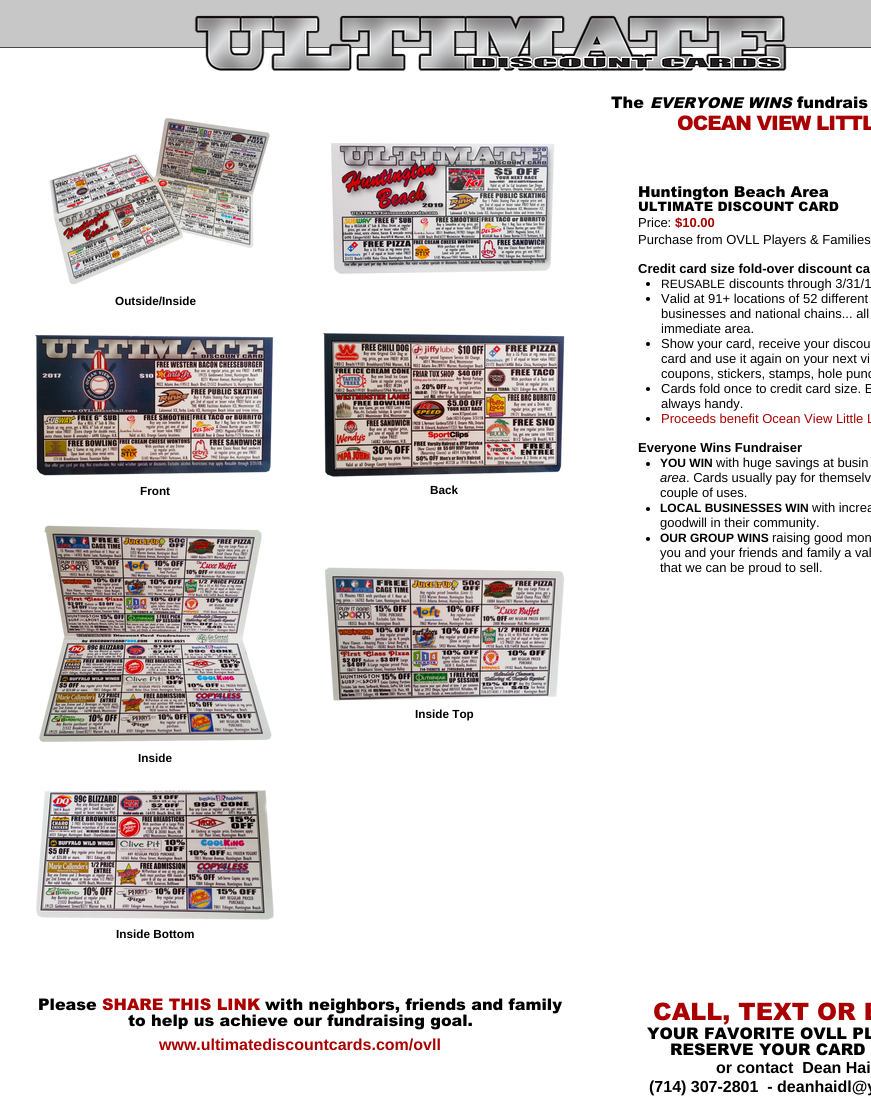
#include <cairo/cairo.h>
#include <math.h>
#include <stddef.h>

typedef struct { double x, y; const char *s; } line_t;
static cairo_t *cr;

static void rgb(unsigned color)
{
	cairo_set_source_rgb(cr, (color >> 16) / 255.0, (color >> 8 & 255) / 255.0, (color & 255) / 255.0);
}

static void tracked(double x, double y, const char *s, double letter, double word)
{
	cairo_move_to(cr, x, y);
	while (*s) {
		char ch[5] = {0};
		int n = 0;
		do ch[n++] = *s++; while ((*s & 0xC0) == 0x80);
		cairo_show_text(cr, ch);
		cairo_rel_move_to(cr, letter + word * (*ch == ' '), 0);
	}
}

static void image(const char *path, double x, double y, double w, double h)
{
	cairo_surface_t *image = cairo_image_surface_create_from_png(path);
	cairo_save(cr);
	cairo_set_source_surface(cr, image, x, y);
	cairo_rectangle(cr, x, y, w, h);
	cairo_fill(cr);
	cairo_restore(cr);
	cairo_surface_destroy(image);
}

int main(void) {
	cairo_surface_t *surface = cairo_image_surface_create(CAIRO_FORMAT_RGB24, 871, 1112);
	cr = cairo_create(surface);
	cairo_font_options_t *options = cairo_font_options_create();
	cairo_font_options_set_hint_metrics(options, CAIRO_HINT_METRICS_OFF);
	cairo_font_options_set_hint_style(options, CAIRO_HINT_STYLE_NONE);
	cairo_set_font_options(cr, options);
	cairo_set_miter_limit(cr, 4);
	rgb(0xffffff);
	cairo_paint(cr);
	rgb(0xc7c7c7);
	cairo_rectangle(cr, 0, 0, 871, 47);
	cairo_fill(cr);
	rgb(0x494949);
	cairo_rectangle(cr, 0, 47, 871, 1);
	cairo_fill(cr);
	image("img/1.png", 194, 15, 593, 56);
	image("img/2.png", 331, 143, 224, 131);
	image("img/3.png", 49, 118, 221, 167);
	image("img/4.png", 35, 334, 238, 142);
	image("img/5.png", 323, 332, 242, 145);
	image("img/6.png", 324, 567, 241, 134);
	image("img/7.png", 39, 525, 233, 217);
	image("img/8.png", 36, 790, 238, 130);
	rgb(0x000000);
	cairo_arc(cr, 648, 284, 2, 0, 2 * M_PI);
	cairo_fill(cr);
	cairo_arc(cr, 648, 299, 2, 0, 2 * M_PI);
	cairo_fill(cr);
	cairo_arc(cr, 648, 344, 2, 0, 2 * M_PI);
	cairo_fill(cr);
	cairo_arc(cr, 648, 389, 2, 0, 2 * M_PI);
	cairo_fill(cr);
	cairo_arc(cr, 648, 419, 2, 0, 2 * M_PI);
	cairo_fill(cr);
	cairo_arc(cr, 648, 464, 2, 0, 2 * M_PI);
	cairo_fill(cr);
	cairo_arc(cr, 648, 509, 2, 0, 2 * M_PI);
	cairo_fill(cr);
	cairo_arc(cr, 648, 539, 2, 0, 2 * M_PI);
	cairo_fill(cr);
	cairo_select_font_face(cr, "arial Black", CAIRO_FONT_SLANT_NORMAL, CAIRO_FONT_WEIGHT_NORMAL);
	cairo_set_font_size(cr, 16);
	cairo_move_to(cr, 611, 108);
	cairo_show_text(cr, "The");
	cairo_select_font_face(cr, "arial Black", CAIRO_FONT_SLANT_ITALIC, CAIRO_FONT_WEIGHT_NORMAL);
	cairo_set_font_size(cr, 15);
	cairo_move_to(cr, 650, 108);
	cairo_show_text(cr, "EVERYONE WINS");
	cairo_select_font_face(cr, "arial Black", CAIRO_FONT_SLANT_NORMAL, CAIRO_FONT_WEIGHT_NORMAL);
	cairo_set_font_size(cr, 16);
	cairo_move_to(cr, 797, 108);
	cairo_show_text(cr, "fundrais");
	cairo_set_font_size(cr, 20);
	rgb(0xaa0000);
	tracked(677, 130, "OCEAN VIEW LITTL", -1, 0);
	cairo_select_font_face(cr, "Liberation Sans", CAIRO_FONT_SLANT_NORMAL, CAIRO_FONT_WEIGHT_BOLD);
	cairo_set_font_size(cr, 11.75);
	rgb(0x000000);
	{
		static const line_t items[] = {
			{115, 305, "Outside/Inside"},
			{140, 495, "Front"},
			{430, 494, "Back"},
			{415, 718, "Inside Top"},
			{138, 762, "Inside"},
			{116, 938, "Inside Bottom"},
		};
		for (size_t i = 0; i < sizeof items / sizeof *items; i++) {
			cairo_move_to(cr, items[i].x, items[i].y);
			cairo_show_text(cr, items[i].s);
		}
	}
	cairo_select_font_face(cr, "arial Black", CAIRO_FONT_SLANT_NORMAL, CAIRO_FONT_WEIGHT_NORMAL);
	cairo_set_font_size(cr, 15);
	cairo_move_to(cr, 638, 197);
	cairo_show_text(cr, "Huntington Beach Area");
	cairo_set_font_size(cr, 13);
	cairo_move_to(cr, 638, 211);
	cairo_show_text(cr, "ULTIMATE DISCOUNT CARD");
	cairo_select_font_face(cr, "Liberation Sans", CAIRO_FONT_SLANT_NORMAL, CAIRO_FONT_WEIGHT_NORMAL);
	cairo_move_to(cr, 638, 227);
	cairo_show_text(cr, "Price:");
	cairo_select_font_face(cr, "Liberation Sans", CAIRO_FONT_SLANT_NORMAL, CAIRO_FONT_WEIGHT_BOLD);
	rgb(0xaa0000);
	cairo_move_to(cr, 675, 227);
	cairo_show_text(cr, "$10.00");
	cairo_select_font_face(cr, "Liberation Sans", CAIRO_FONT_SLANT_NORMAL, CAIRO_FONT_WEIGHT_NORMAL);
	rgb(0x000000);
	cairo_move_to(cr, 638, 244);
	cairo_show_text(cr, "Purchase from OVLL Players & Families");
	cairo_select_font_face(cr, "Liberation Sans", CAIRO_FONT_SLANT_NORMAL, CAIRO_FONT_WEIGHT_BOLD);
	cairo_move_to(cr, 638, 273);
	cairo_show_text(cr, "Credit card size fold-over discount ca");
	cairo_select_font_face(cr, "Liberation Sans", CAIRO_FONT_SLANT_NORMAL, CAIRO_FONT_WEIGHT_NORMAL);
	cairo_set_font_size(cr, 12);
	cairo_move_to(cr, 661, 288);
	cairo_show_text(cr, "REUSABLE");
	cairo_set_font_size(cr, 13);
	{
		static const line_t items[] = {
			{729, 288, "discounts through 3/31/1"},
			{661, 303, "Valid at 91+ locations of 52 different"},
			{661, 318, "businesses and national chains... all"},
			{661, 333, "immediate area."},
			{661, 348, "Show your card, receive your discou"},
			{661, 363, "card and use it again on your next vi"},
			{661, 378, "coupons, stickers, stamps, hole punc"},
			{661, 393, "Cards fold once to credit card size. E"},
			{661, 408, "always handy."},
		};
		for (size_t i = 0; i < sizeof items / sizeof *items; i++) {
			cairo_move_to(cr, items[i].x, items[i].y);
			cairo_show_text(cr, items[i].s);
		}
	}
	rgb(0xaa0000);
	cairo_move_to(cr, 661, 423);
	cairo_show_text(cr, "Proceeds benefit Ocean View Little L");
	cairo_select_font_face(cr, "Liberation Sans", CAIRO_FONT_SLANT_NORMAL, CAIRO_FONT_WEIGHT_BOLD);
	rgb(0x000000);
	cairo_move_to(cr, 638, 452);
	cairo_show_text(cr, "Everyone Wins Fundraiser");
	cairo_set_font_size(cr, 12);
	cairo_move_to(cr, 660, 467);
	cairo_show_text(cr, "YOU WIN");
	cairo_select_font_face(cr, "Liberation Sans", CAIRO_FONT_SLANT_NORMAL, CAIRO_FONT_WEIGHT_NORMAL);
	cairo_set_font_size(cr, 13);
	cairo_move_to(cr, 716, 467);
	cairo_show_text(cr, "with huge savings at busin");
	cairo_select_font_face(cr, "Liberation Sans", CAIRO_FONT_SLANT_ITALIC, CAIRO_FONT_WEIGHT_NORMAL);
	cairo_move_to(cr, 660, 482);
	cairo_show_text(cr, "area");
	cairo_select_font_face(cr, "Liberation Sans", CAIRO_FONT_SLANT_NORMAL, CAIRO_FONT_WEIGHT_NORMAL);
	cairo_move_to(cr, 686, 482);
	cairo_show_text(cr, ". Cards usually pay for themselv");
	cairo_move_to(cr, 660, 497);
	cairo_show_text(cr, "couple of uses.");
	cairo_select_font_face(cr, "Liberation Sans", CAIRO_FONT_SLANT_NORMAL, CAIRO_FONT_WEIGHT_BOLD);
	cairo_set_font_size(cr, 12);
	cairo_move_to(cr, 660, 512);
	cairo_show_text(cr, "LOCAL BUSINESSES WIN");
	cairo_select_font_face(cr, "Liberation Sans", CAIRO_FONT_SLANT_NORMAL, CAIRO_FONT_WEIGHT_NORMAL);
	cairo_set_font_size(cr, 13);
	cairo_move_to(cr, 812, 512);
	cairo_show_text(cr, "with increa");
	cairo_move_to(cr, 660, 527);
	cairo_show_text(cr, "goodwill in their community.");
	cairo_select_font_face(cr, "Liberation Sans", CAIRO_FONT_SLANT_NORMAL, CAIRO_FONT_WEIGHT_BOLD);
	cairo_set_font_size(cr, 12);
	cairo_move_to(cr, 660, 542);
	cairo_show_text(cr, "OUR GROUP WINS");
	cairo_select_font_face(cr, "Liberation Sans", CAIRO_FONT_SLANT_NORMAL, CAIRO_FONT_WEIGHT_NORMAL);
	cairo_set_font_size(cr, 13);
	{
		static const line_t items[] = {
			{772, 542, "raising good mon"},
			{660, 557, "you and your friends and family a val"},
			{660, 572, "that we can be proud to sell."},
		};
		for (size_t i = 0; i < sizeof items / sizeof *items; i++) {
			cairo_move_to(cr, items[i].x, items[i].y);
			cairo_show_text(cr, items[i].s);
		}
	}
	cairo_select_font_face(cr, "arial Black", CAIRO_FONT_SLANT_NORMAL, CAIRO_FONT_WEIGHT_NORMAL);
	cairo_set_font_size(cr, 16);
	cairo_move_to(cr, 38, 1010);
	cairo_show_text(cr, "Please");
	rgb(0xaa0000);
	cairo_move_to(cr, 102, 1010);
	cairo_show_text(cr, "SHARE THIS LINK");
	rgb(0x000000);
	cairo_move_to(cr, 265, 1010);
	cairo_show_text(cr, "with neighbors, friends and family");
	cairo_move_to(cr, 128, 1026);
	cairo_show_text(cr, "to help us achieve our fundraising goal.");
	cairo_select_font_face(cr, "Liberation Sans", CAIRO_FONT_SLANT_NORMAL, CAIRO_FONT_WEIGHT_BOLD);
	rgb(0xaa0000);
	cairo_move_to(cr, 159, 1050);
	cairo_show_text(cr, "www.ultimatediscountcards.com/ovll");
	cairo_select_font_face(cr, "arial Black", CAIRO_FONT_SLANT_NORMAL, CAIRO_FONT_WEIGHT_NORMAL);
	cairo_set_font_size(cr, 24);
	cairo_move_to(cr, 653, 1020);
	cairo_show_text(cr, "CALL, TEXT OR E");
	cairo_set_font_size(cr, 16);
	rgb(0x000000);
	cairo_move_to(cr, 647, 1039);
	cairo_show_text(cr, "YOUR FAVORITE OVLL PL");
	cairo_move_to(cr, 670, 1055);
	cairo_show_text(cr, "RESERVE YOUR CARD");
	cairo_select_font_face(cr, "Liberation Sans", CAIRO_FONT_SLANT_NORMAL, CAIRO_FONT_WEIGHT_BOLD);
	cairo_move_to(cr, 716, 1073);
	cairo_show_text(cr, "or contact  Dean Hai");
	cairo_move_to(cr, 649, 1092);
	cairo_show_text(cr, "(714) 307-2801  - deanhaidl@y");
	cairo_surface_write_to_png(surface, "page.png");
	cairo_font_options_destroy(options);
	cairo_destroy(cr);
	cairo_surface_destroy(surface);
	return 0;
}
